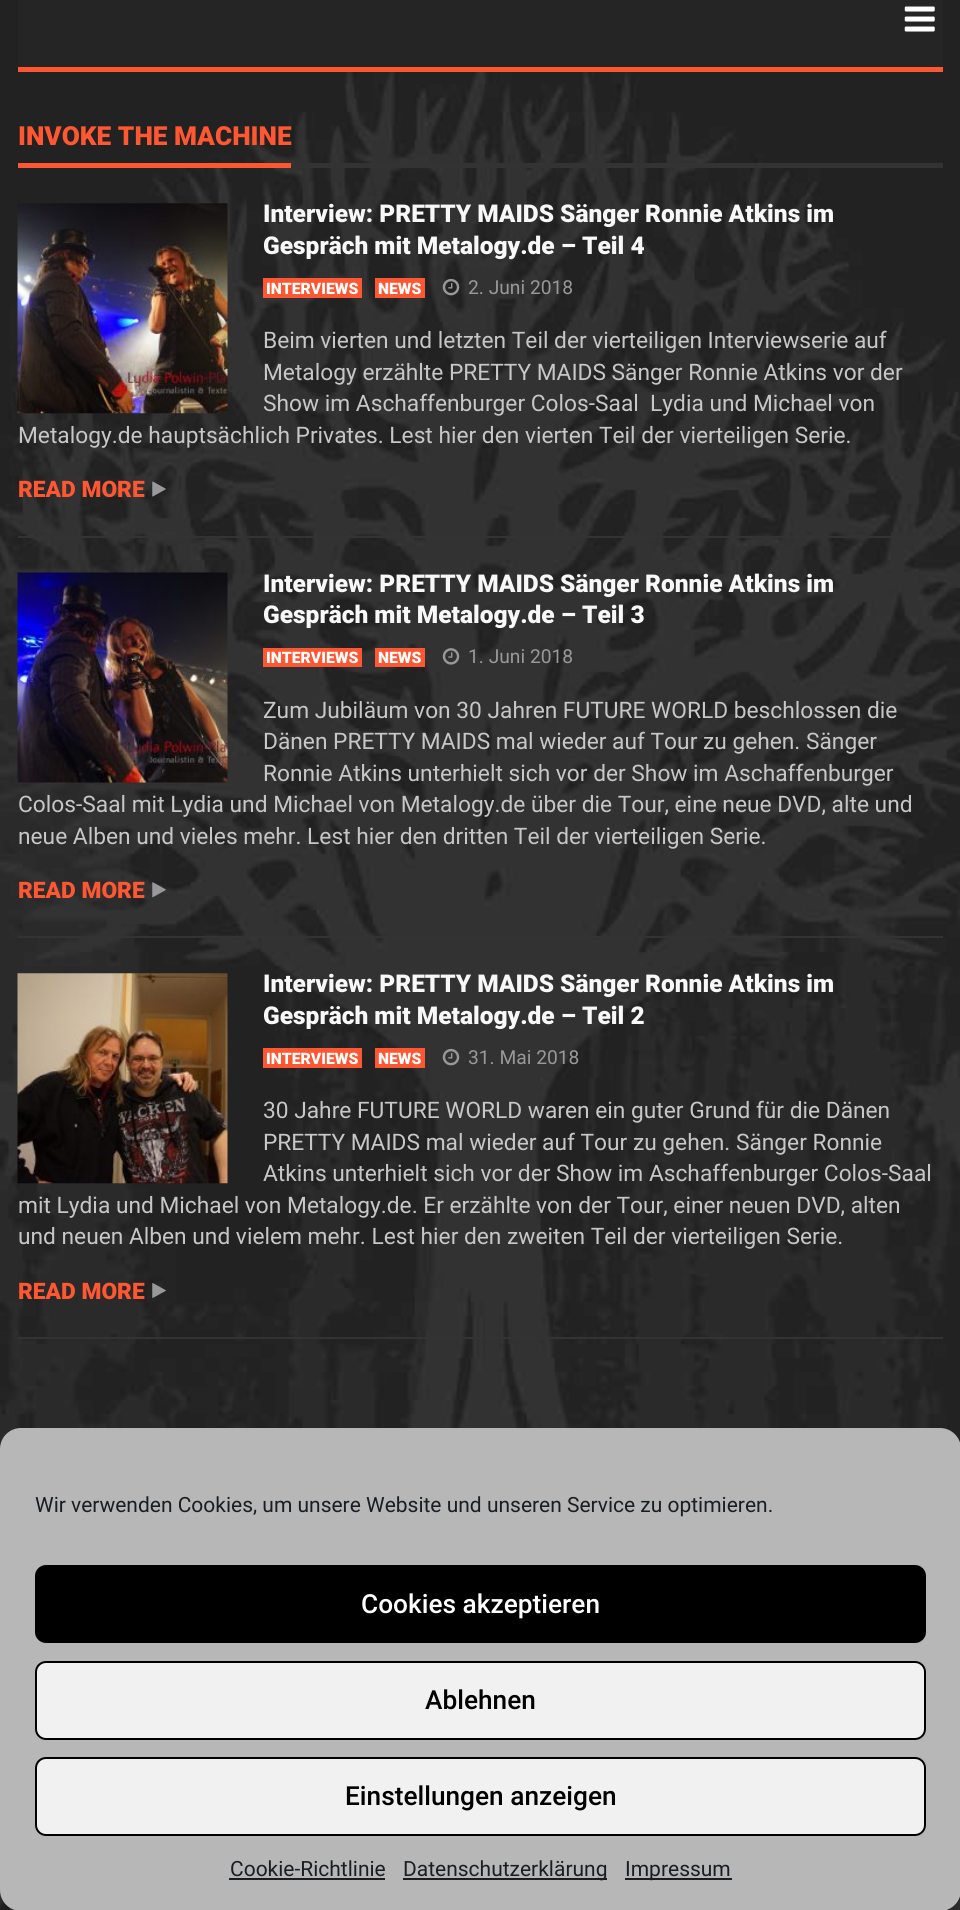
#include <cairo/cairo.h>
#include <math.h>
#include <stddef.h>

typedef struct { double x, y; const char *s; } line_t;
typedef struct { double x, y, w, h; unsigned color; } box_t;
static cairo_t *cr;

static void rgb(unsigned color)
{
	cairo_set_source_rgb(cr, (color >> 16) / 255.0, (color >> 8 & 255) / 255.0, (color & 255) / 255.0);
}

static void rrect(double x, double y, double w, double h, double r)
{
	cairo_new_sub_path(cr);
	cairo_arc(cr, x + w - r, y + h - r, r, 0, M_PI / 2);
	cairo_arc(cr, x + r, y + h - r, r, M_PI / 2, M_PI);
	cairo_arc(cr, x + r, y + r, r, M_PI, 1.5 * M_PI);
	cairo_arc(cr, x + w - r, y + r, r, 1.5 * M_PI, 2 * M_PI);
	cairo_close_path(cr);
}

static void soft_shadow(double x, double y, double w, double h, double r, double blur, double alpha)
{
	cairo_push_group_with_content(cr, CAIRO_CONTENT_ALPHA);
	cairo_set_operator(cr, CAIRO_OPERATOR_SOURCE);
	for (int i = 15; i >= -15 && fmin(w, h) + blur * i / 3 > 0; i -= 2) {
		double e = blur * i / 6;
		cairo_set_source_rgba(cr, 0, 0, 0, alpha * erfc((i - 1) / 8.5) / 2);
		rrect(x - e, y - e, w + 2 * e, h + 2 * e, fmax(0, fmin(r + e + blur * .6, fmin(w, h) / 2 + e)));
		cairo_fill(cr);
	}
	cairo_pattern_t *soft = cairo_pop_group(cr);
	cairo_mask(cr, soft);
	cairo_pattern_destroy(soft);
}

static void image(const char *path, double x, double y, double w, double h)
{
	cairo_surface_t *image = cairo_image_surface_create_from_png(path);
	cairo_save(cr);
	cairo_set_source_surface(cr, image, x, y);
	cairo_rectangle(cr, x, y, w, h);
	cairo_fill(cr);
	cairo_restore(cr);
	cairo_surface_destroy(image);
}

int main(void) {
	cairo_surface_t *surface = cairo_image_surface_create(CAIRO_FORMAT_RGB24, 960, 1910);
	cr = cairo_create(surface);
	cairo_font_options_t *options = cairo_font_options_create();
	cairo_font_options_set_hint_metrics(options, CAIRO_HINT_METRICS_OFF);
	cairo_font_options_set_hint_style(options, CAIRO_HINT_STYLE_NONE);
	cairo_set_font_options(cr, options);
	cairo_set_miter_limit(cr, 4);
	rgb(0xffffff);
	cairo_paint(cr);
	image("img/1.png", 0, 0, 960, 1910);
	rgb(0xff5732);
	cairo_rectangle(cr, 18, 67, 925, 5);
	cairo_fill(cr);
	rgb(0x252525);
	cairo_rectangle(cr, 18, 0, 925, 67);
	cairo_fill(cr);
	image("img/2.png", 904, 6, 31, 26);
	{
		static const box_t items[] = {
			{303, 163, 640, 5, 0x333333},
			{18, 163, 273, 5, 0xff5732},
			{18, 536, 925, 2, 0x333333},
		};
		for (size_t i = 0; i < sizeof items / sizeof *items; i++) {
			rgb(items[i].color);
			cairo_rectangle(cr, items[i].x, items[i].y, items[i].w, items[i].h);
			cairo_fill(cr);
		}
	}
	image("img/3.png", 17, 203, 211, 211);
	rgb(0xff5732);
	cairo_rectangle(cr, 263, 278, 99, 20);
	cairo_fill(cr);
	cairo_rectangle(cr, 375, 278, 50, 20);
	cairo_fill(cr);
	image("img/4.png", 442, 278, 18, 18);
	image("img/5.png", 152, 481, 14, 16);
	rgb(0x333333);
	cairo_rectangle(cr, 18, 936, 925, 2);
	cairo_fill(cr);
	image("img/6.png", 17, 572, 211, 211);
	rgb(0xff5732);
	cairo_rectangle(cr, 263, 648, 99, 19);
	cairo_fill(cr);
	cairo_rectangle(cr, 375, 648, 50, 19);
	cairo_fill(cr);
	image("img/7.png", 442, 648, 18, 17);
	image("img/8.png", 152, 882, 14, 16);
	rgb(0x333333);
	cairo_rectangle(cr, 18, 1337, 925, 2);
	cairo_fill(cr);
	image("img/9.png", 17, 973, 211, 211);
	rgb(0xff5732);
	cairo_rectangle(cr, 263, 1048, 99, 20);
	cairo_fill(cr);
	cairo_rectangle(cr, 375, 1048, 50, 20);
	cairo_fill(cr);
	image("img/10.png", 442, 1048, 18, 18);
	image("img/11.png", 152, 1283, 14, 15);
	rgb(0x000000);
	soft_shadow(0, 1439, 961, 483, 21, 5, 0.23);
	rgb(0xb7b7b7);
	rrect(0, 1428, 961, 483, 21);
	cairo_fill(cr);
	rgb(0x000000);
	rrect(36, 1566, 889, 76, 10);
	cairo_fill_preserve(cr);
	cairo_stroke(cr);
	rgb(0xf1f1f1);
	rrect(36, 1662, 889, 77, 10);
	cairo_fill_preserve(cr);
	rgb(0x000000);
	cairo_stroke(cr);
	rgb(0xf1f1f1);
	rrect(36, 1758, 889, 77, 10);
	cairo_fill_preserve(cr);
	rgb(0x000000);
	cairo_stroke(cr);
	{
		static const box_t items[] = {
			{229, 1878, 156, 2, 0x191e23},
			{403, 1878, 204, 2, 0x191e23},
			{625, 1878, 107, 2, 0x191e23},
		};
		for (size_t i = 0; i < sizeof items / sizeof *items; i++) {
			rgb(items[i].color);
			cairo_rectangle(cr, items[i].x, items[i].y, items[i].w, items[i].h);
			cairo_fill(cr);
		}
	}
	cairo_select_font_face(cr, "Roboto Black", CAIRO_FONT_SLANT_NORMAL, CAIRO_FONT_WEIGHT_NORMAL);
	cairo_set_font_size(cr, 26.25);
	rgb(0xff5732);
	cairo_move_to(cr, 18, 145);
	cairo_show_text(cr, "INVOKE THE MACHINE");
	cairo_set_font_size(cr, 24.5);
	rgb(0xf8f8f8);
	cairo_move_to(cr, 263, 222);
	cairo_show_text(cr, "Interview: PRETTY MAIDS Sänger Ronnie Atkins im");
	cairo_move_to(cr, 263, 254);
	cairo_show_text(cr, "Gespräch mit Metalogy.de – Teil 4");
	cairo_set_font_size(cr, 15.75);
	rgb(0xffffff);
	cairo_move_to(cr, 266, 294);
	cairo_show_text(cr, "INTERVIEWS");
	cairo_move_to(cr, 378, 294);
	cairo_show_text(cr, "NEWS");
	cairo_select_font_face(cr, "Roboto", CAIRO_FONT_SLANT_NORMAL, CAIRO_FONT_WEIGHT_NORMAL);
	cairo_set_font_size(cr, 19.25);
	rgb(0x999999);
	cairo_move_to(cr, 468, 294);
	cairo_show_text(cr, "2. Juni 2018");
	cairo_set_font_size(cr, 22.75);
	rgb(0xc7c7c7);
	{
		static const line_t items[] = {
			{263, 348, "Beim vierten und letzten Teil der vierteiligen Interviewserie auf"},
			{263, 380, "Metalogy erzählte PRETTY MAIDS Sänger Ronnie Atkins vor der"},
			{263, 411, "Show im Aschaffenburger Colos-Saal  Lydia und Michael von"},
			{18, 443, "Metalogy.de hauptsächlich Privates. Lest hier den vierten Teil der vierteiligen Serie."},
		};
		for (size_t i = 0; i < sizeof items / sizeof *items; i++) {
			cairo_move_to(cr, items[i].x, items[i].y);
			cairo_show_text(cr, items[i].s);
		}
	}
	cairo_select_font_face(cr, "Roboto Black", CAIRO_FONT_SLANT_NORMAL, CAIRO_FONT_WEIGHT_NORMAL);
	rgb(0xff5732);
	cairo_move_to(cr, 18, 497);
	cairo_show_text(cr, "READ MORE");
	cairo_set_font_size(cr, 24.5);
	rgb(0xf8f8f8);
	cairo_move_to(cr, 263, 592);
	cairo_show_text(cr, "Interview: PRETTY MAIDS Sänger Ronnie Atkins im");
	cairo_move_to(cr, 263, 623);
	cairo_show_text(cr, "Gespräch mit Metalogy.de – Teil 3");
	cairo_set_font_size(cr, 15.75);
	rgb(0xffffff);
	cairo_move_to(cr, 266, 663);
	cairo_show_text(cr, "INTERVIEWS");
	cairo_move_to(cr, 378, 663);
	cairo_show_text(cr, "NEWS");
	cairo_select_font_face(cr, "Roboto", CAIRO_FONT_SLANT_NORMAL, CAIRO_FONT_WEIGHT_NORMAL);
	cairo_set_font_size(cr, 19.25);
	rgb(0x999999);
	cairo_move_to(cr, 468, 663);
	cairo_show_text(cr, "1. Juni 2018");
	cairo_set_font_size(cr, 22.75);
	rgb(0xc7c7c7);
	{
		static const line_t items[] = {
			{263, 718, "Zum Jubiläum von 30 Jahren FUTURE WORLD beschlossen die"},
			{263, 749, "Dänen PRETTY MAIDS mal wieder auf Tour zu gehen. Sänger"},
			{263, 781, "Ronnie Atkins unterhielt sich vor der Show im Aschaffenburger"},
			{18, 812, "Colos-Saal mit Lydia und Michael von Metalogy.de über die Tour, eine neue DVD, alte und"},
			{18, 844, "neue Alben und vieles mehr. Lest hier den dritten Teil der vierteiligen Serie."},
		};
		for (size_t i = 0; i < sizeof items / sizeof *items; i++) {
			cairo_move_to(cr, items[i].x, items[i].y);
			cairo_show_text(cr, items[i].s);
		}
	}
	cairo_select_font_face(cr, "Roboto Black", CAIRO_FONT_SLANT_NORMAL, CAIRO_FONT_WEIGHT_NORMAL);
	rgb(0xff5732);
	cairo_move_to(cr, 18, 898);
	cairo_show_text(cr, "READ MORE");
	cairo_set_font_size(cr, 24.5);
	rgb(0xf8f8f8);
	cairo_move_to(cr, 263, 992);
	cairo_show_text(cr, "Interview: PRETTY MAIDS Sänger Ronnie Atkins im");
	cairo_move_to(cr, 263, 1024);
	cairo_show_text(cr, "Gespräch mit Metalogy.de – Teil 2");
	cairo_set_font_size(cr, 15.75);
	rgb(0xffffff);
	cairo_move_to(cr, 266, 1064);
	cairo_show_text(cr, "INTERVIEWS");
	cairo_move_to(cr, 378, 1064);
	cairo_show_text(cr, "NEWS");
	cairo_select_font_face(cr, "Roboto", CAIRO_FONT_SLANT_NORMAL, CAIRO_FONT_WEIGHT_NORMAL);
	cairo_set_font_size(cr, 19.25);
	rgb(0x999999);
	cairo_move_to(cr, 468, 1064);
	cairo_show_text(cr, "31. Mai 2018");
	cairo_set_font_size(cr, 22.75);
	rgb(0xc7c7c7);
	{
		static const line_t items[] = {
			{263, 1118, "30 Jahre FUTURE WORLD waren ein guter Grund für die Dänen"},
			{263, 1150, "PRETTY MAIDS mal wieder auf Tour zu gehen. Sänger Ronnie"},
			{263, 1181, "Atkins unterhielt sich vor der Show im Aschaffenburger Colos-Saal"},
			{18, 1213, "mit Lydia und Michael von Metalogy.de. Er erzählte von der Tour, einer neuen DVD, alten"},
			{18, 1244, "und neuen Alben und vielem mehr. Lest hier den zweiten Teil der vierteiligen Serie."},
		};
		for (size_t i = 0; i < sizeof items / sizeof *items; i++) {
			cairo_move_to(cr, items[i].x, items[i].y);
			cairo_show_text(cr, items[i].s);
		}
	}
	cairo_select_font_face(cr, "Roboto Black", CAIRO_FONT_SLANT_NORMAL, CAIRO_FONT_WEIGHT_NORMAL);
	rgb(0xff5732);
	cairo_move_to(cr, 18, 1299);
	cairo_show_text(cr, "READ MORE");
	cairo_select_font_face(cr, "Roboto", CAIRO_FONT_SLANT_NORMAL, CAIRO_FONT_WEIGHT_NORMAL);
	cairo_set_font_size(cr, 21);
	rgb(0x191e23);
	cairo_move_to(cr, 35, 1512);
	cairo_show_text(cr, "Wir verwenden Cookies, um unsere Website und unseren Service zu optimieren.");
	cairo_select_font_face(cr, "Roboto Medium", CAIRO_FONT_SLANT_NORMAL, CAIRO_FONT_WEIGHT_NORMAL);
	cairo_set_font_size(cr, 26.25);
	rgb(0xffffff);
	cairo_move_to(cr, 361, 1613);
	cairo_show_text(cr, "Cookies akzeptieren");
	rgb(0x000000);
	cairo_move_to(cr, 425, 1709);
	cairo_show_text(cr, "Ablehnen");
	cairo_move_to(cr, 345, 1805);
	cairo_show_text(cr, "Einstellungen anzeigen");
	cairo_select_font_face(cr, "Roboto", CAIRO_FONT_SLANT_NORMAL, CAIRO_FONT_WEIGHT_NORMAL);
	cairo_set_font_size(cr, 21);
	rgb(0x191e23);
	{
		static const line_t items[] = {
			{230, 1876, "Cookie-Richtlinie"},
			{403, 1876, "Datenschutzerklärung"},
			{625, 1876, "Impressum"},
		};
		for (size_t i = 0; i < sizeof items / sizeof *items; i++) {
			cairo_move_to(cr, items[i].x, items[i].y);
			cairo_show_text(cr, items[i].s);
		}
	}
	cairo_surface_write_to_png(surface, "page.png");
	cairo_font_options_destroy(options);
	cairo_destroy(cr);
	cairo_surface_destroy(surface);
	return 0;
}
